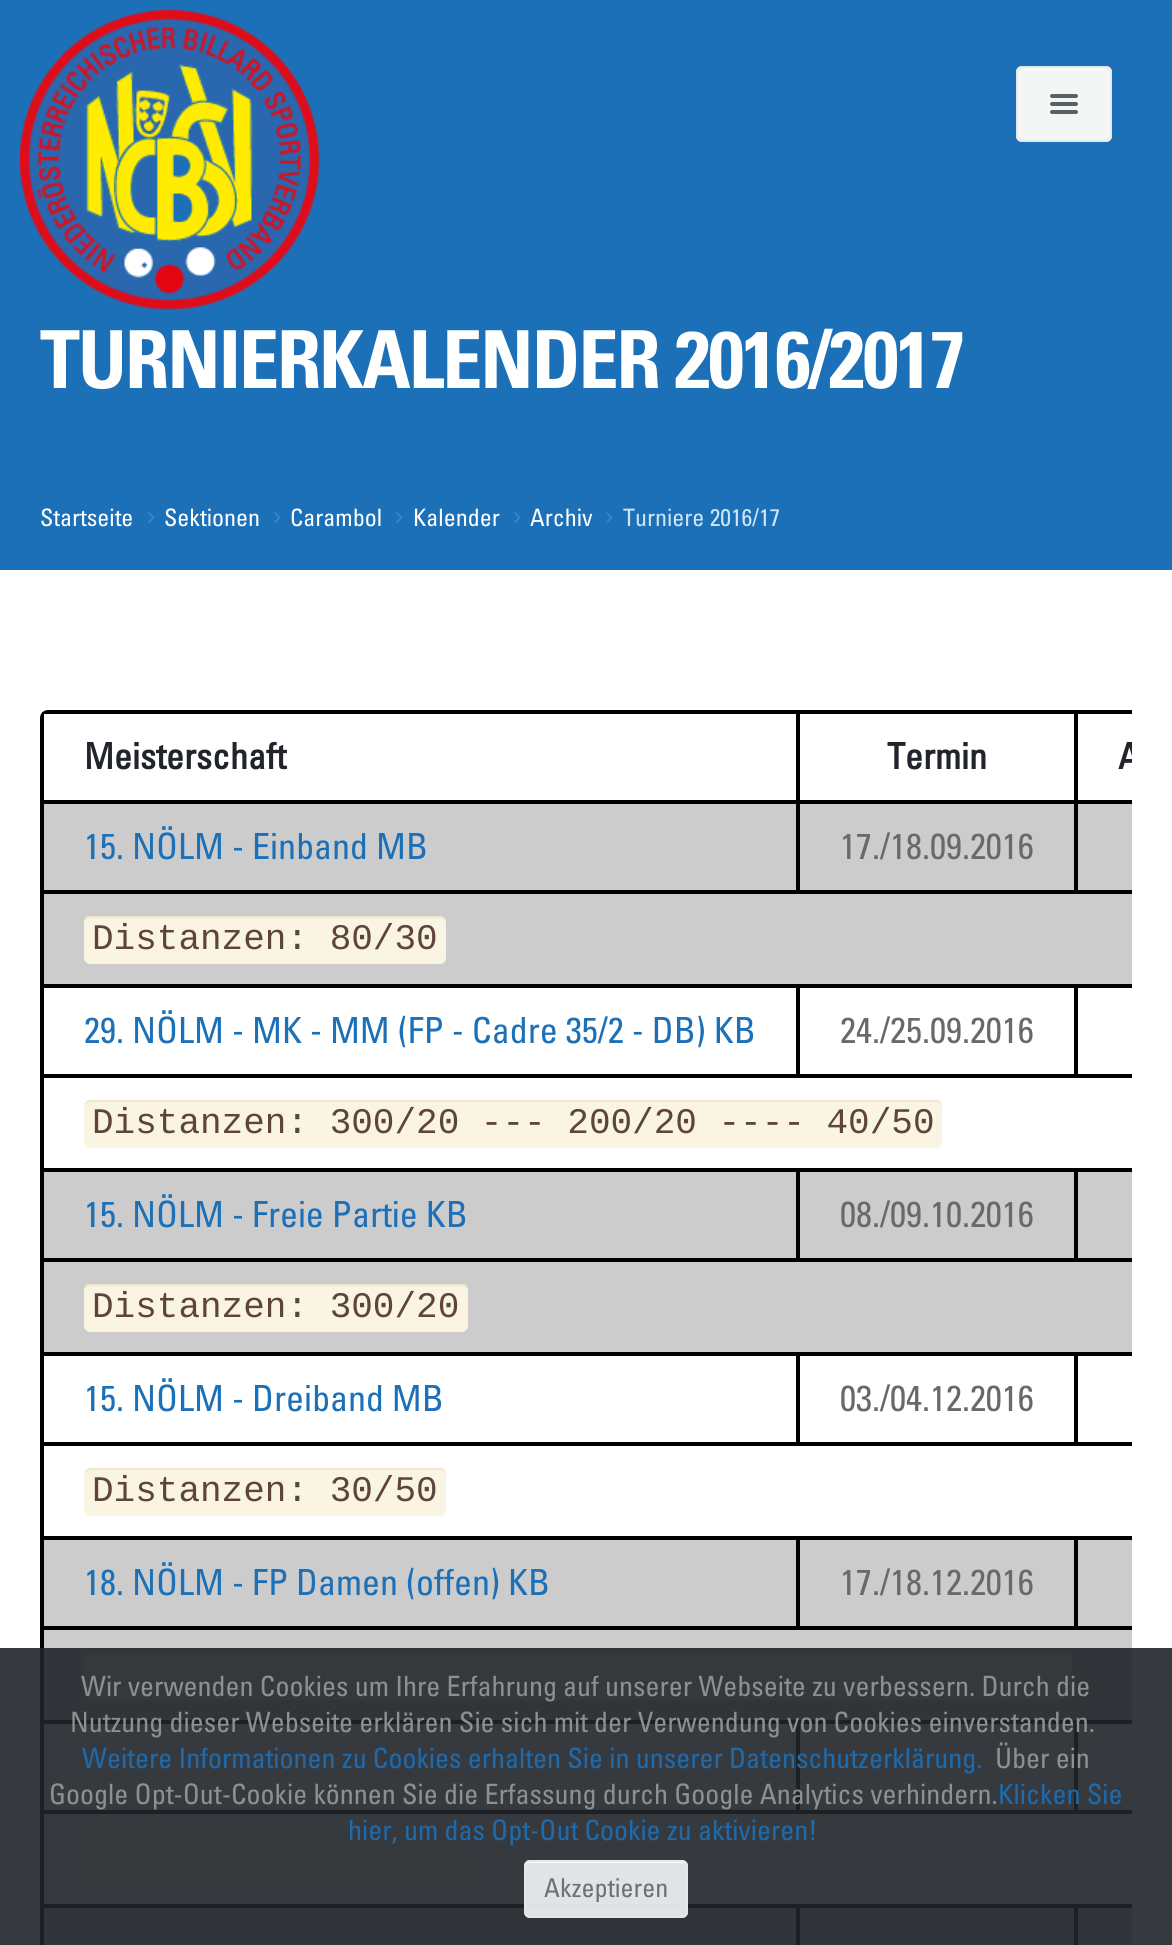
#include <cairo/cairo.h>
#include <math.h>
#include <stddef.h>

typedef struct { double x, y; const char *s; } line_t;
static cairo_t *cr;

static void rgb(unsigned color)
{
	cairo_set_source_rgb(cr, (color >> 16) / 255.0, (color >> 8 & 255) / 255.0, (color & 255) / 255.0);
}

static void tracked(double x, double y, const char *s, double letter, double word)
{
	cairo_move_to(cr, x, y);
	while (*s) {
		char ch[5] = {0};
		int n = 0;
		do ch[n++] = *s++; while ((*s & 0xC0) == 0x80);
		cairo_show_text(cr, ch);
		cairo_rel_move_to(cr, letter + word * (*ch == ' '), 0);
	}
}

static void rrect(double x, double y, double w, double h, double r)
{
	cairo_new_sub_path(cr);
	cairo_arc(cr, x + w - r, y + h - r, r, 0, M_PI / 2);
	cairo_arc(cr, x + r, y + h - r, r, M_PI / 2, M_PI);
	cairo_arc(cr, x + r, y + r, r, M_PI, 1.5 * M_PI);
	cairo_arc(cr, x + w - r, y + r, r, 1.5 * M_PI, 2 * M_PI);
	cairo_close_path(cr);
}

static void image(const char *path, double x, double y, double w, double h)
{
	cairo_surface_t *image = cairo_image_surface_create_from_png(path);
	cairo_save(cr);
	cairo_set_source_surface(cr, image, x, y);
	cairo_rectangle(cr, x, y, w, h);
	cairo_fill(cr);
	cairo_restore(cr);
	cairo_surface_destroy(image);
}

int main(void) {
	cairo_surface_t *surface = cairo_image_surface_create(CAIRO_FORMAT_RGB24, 1172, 1945);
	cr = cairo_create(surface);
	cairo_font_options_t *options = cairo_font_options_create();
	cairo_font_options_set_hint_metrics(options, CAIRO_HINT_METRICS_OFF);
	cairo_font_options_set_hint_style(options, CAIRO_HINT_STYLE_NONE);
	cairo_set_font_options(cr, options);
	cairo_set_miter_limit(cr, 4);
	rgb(0xffffff);
	cairo_paint(cr);
	rgb(0x1c70b7);
	cairo_rectangle(cr, 0, 0, 1172, 570);
	cairo_fill(cr);
	image("img/1.png", 20, 10, 300, 300);
	rgb(0xf4f6f6);
	rrect(1016, 66, 96, 76, 6);
	cairo_fill(cr);
	rgb(0xf8fafa);
	cairo_new_path(cr);
	cairo_move_to(cr, 1022, 70);
	cairo_line_to(cr, 1106, 70);
	cairo_curve_to(cr, 1108, 70, 1110, 72, 1110, 74);
	cairo_curve_to(cr, 1110, 64, 1100, 68, 1092, 68);
	cairo_line_to(cr, 1036, 68);
	cairo_curve_to(cr, 1028, 68, 1018, 64, 1018, 74);
	cairo_curve_to(cr, 1018, 72, 1020, 70, 1022, 70);
	cairo_close_path(cr);
	cairo_fill(cr);
	rrect(1017, 67, 94, 74, 5);
	rgb(0xe3e9e9);
	cairo_stroke(cr);
	image("img/2.png", 1050, 94, 28, 20);
	image("img/3.png", 148, 512, 7, 11);
	image("img/3.png", 274, 512, 7, 11);
	image("img/3.png", 396, 512, 7, 11);
	image("img/3.png", 514, 512, 7, 11);
	image("img/3.png", 606, 512, 7, 11);
	cairo_save(cr);
	cairo_rectangle(cr, 40, 710, 1092, 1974);
	cairo_clip(cr);
	rrect(41, 711, 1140, 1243, 7);
	rgb(0x000000);
	cairo_stroke(cr);
	cairo_restore(cr);
	cairo_rectangle(cr, 43, 713, 754, 88);
	rgb(0x000000);
	cairo_stroke(cr);
	cairo_rectangle(cr, 799, 713, 276, 88);
	cairo_stroke(cr);
	cairo_save(cr);
	cairo_rectangle(cr, 40, 710, 1092, 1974);
	cairo_clip(cr);
	cairo_rectangle(cr, 1077, 713, 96, 88);
	cairo_stroke(cr);
	cairo_restore(cr);
	rgb(0xcccccc);
	cairo_rectangle(cr, 43, 803, 754, 88);
	cairo_fill_preserve(cr);
	rgb(0x000000);
	cairo_stroke(cr);
	rgb(0xcccccc);
	cairo_rectangle(cr, 799, 803, 276, 88);
	cairo_fill_preserve(cr);
	rgb(0x000000);
	cairo_stroke(cr);
	rgb(0xcccccc);
	cairo_rectangle(cr, 1078, 804, 54, 86);
	cairo_fill(cr);
	cairo_save(cr);
	cairo_rectangle(cr, 40, 710, 1092, 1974);
	cairo_clip(cr);
	cairo_rectangle(cr, 1077, 803, 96, 88);
	rgb(0x000000);
	cairo_stroke(cr);
	cairo_restore(cr);
	cairo_rectangle(cr, 44, 894, 1088, 90);
	cairo_fill(cr);
	cairo_save(cr);
	cairo_rectangle(cr, 40, 710, 1092, 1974);
	cairo_clip(cr);
	cairo_rectangle(cr, 43, 893, 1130, 92);
	rgb(0x000000);
	cairo_stroke(cr);
	cairo_restore(cr);
	rgb(0xfaf5e2);
	rrect(84, 916, 362, 48, 6);
	cairo_fill(cr);
	rgb(0xf0e7d3);
	cairo_new_path(cr);
	cairo_move_to(cr, 90, 918);
	cairo_line_to(cr, 440, 918);
	cairo_curve_to(cr, 443, 918, 446, 921, 446, 924);
	cairo_line_to(cr, 446, 922);
	cairo_curve_to(cr, 446, 919, 443, 916, 440, 916);
	cairo_line_to(cr, 90, 916);
	cairo_curve_to(cr, 87, 916, 84, 919, 84, 922);
	cairo_line_to(cr, 84, 924);
	cairo_curve_to(cr, 84, 921, 87, 918, 90, 918);
	cairo_close_path(cr);
	cairo_fill(cr);
	cairo_rectangle(cr, 43, 987, 754, 88);
	rgb(0x000000);
	cairo_stroke(cr);
	cairo_rectangle(cr, 799, 987, 276, 88);
	cairo_stroke(cr);
	cairo_save(cr);
	cairo_rectangle(cr, 40, 710, 1092, 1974);
	cairo_clip(cr);
	cairo_rectangle(cr, 1077, 987, 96, 88);
	cairo_stroke(cr);
	cairo_rectangle(cr, 43, 1077, 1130, 92);
	cairo_stroke(cr);
	cairo_restore(cr);
	rgb(0xfaf5e2);
	rrect(84, 1100, 858, 48, 6);
	cairo_fill(cr);
	rgb(0xf0e7d3);
	cairo_new_path(cr);
	cairo_move_to(cr, 90, 1102);
	cairo_line_to(cr, 936, 1102);
	cairo_curve_to(cr, 939, 1102, 942, 1105, 942, 1108);
	cairo_curve_to(cr, 942, 1104, 941, 1100, 936, 1100);
	cairo_line_to(cr, 90, 1100);
	cairo_curve_to(cr, 85, 1100, 84, 1104, 84, 1108);
	cairo_curve_to(cr, 84, 1105, 87, 1102, 90, 1102);
	cairo_close_path(cr);
	cairo_fill(cr);
	rgb(0xcccccc);
	cairo_rectangle(cr, 43, 1171, 754, 88);
	cairo_fill_preserve(cr);
	rgb(0x000000);
	cairo_stroke(cr);
	rgb(0xcccccc);
	cairo_rectangle(cr, 799, 1171, 276, 88);
	cairo_fill_preserve(cr);
	rgb(0x000000);
	cairo_stroke(cr);
	rgb(0xcccccc);
	cairo_rectangle(cr, 1078, 1172, 54, 86);
	cairo_fill(cr);
	cairo_save(cr);
	cairo_rectangle(cr, 40, 710, 1092, 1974);
	cairo_clip(cr);
	cairo_rectangle(cr, 1077, 1171, 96, 88);
	rgb(0x000000);
	cairo_stroke(cr);
	cairo_restore(cr);
	cairo_rectangle(cr, 44, 1262, 1088, 90);
	cairo_fill(cr);
	cairo_save(cr);
	cairo_rectangle(cr, 40, 710, 1092, 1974);
	cairo_clip(cr);
	cairo_rectangle(cr, 43, 1261, 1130, 92);
	rgb(0x000000);
	cairo_stroke(cr);
	cairo_restore(cr);
	rgb(0xfaf5e2);
	rrect(84, 1284, 384, 48, 6);
	cairo_fill(cr);
	rgb(0xf0e7d3);
	cairo_new_path(cr);
	cairo_move_to(cr, 90, 1286);
	cairo_line_to(cr, 462, 1286);
	cairo_curve_to(cr, 465, 1286, 468, 1289, 468, 1292);
	cairo_curve_to(cr, 468, 1288, 467, 1284, 462, 1284);
	cairo_line_to(cr, 90, 1284);
	cairo_curve_to(cr, 85, 1284, 84, 1288, 84, 1292);
	cairo_curve_to(cr, 84, 1289, 87, 1286, 90, 1286);
	cairo_close_path(cr);
	cairo_fill(cr);
	cairo_rectangle(cr, 43, 1355, 754, 88);
	rgb(0x000000);
	cairo_stroke(cr);
	cairo_rectangle(cr, 799, 1355, 276, 88);
	cairo_stroke(cr);
	cairo_save(cr);
	cairo_rectangle(cr, 40, 710, 1092, 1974);
	cairo_clip(cr);
	cairo_rectangle(cr, 1077, 1355, 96, 88);
	cairo_stroke(cr);
	cairo_rectangle(cr, 43, 1445, 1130, 92);
	cairo_stroke(cr);
	cairo_restore(cr);
	rgb(0xfaf5e2);
	rrect(84, 1468, 362, 48, 6);
	cairo_fill(cr);
	rgb(0xf0e7d3);
	cairo_new_path(cr);
	cairo_move_to(cr, 90, 1470);
	cairo_line_to(cr, 440, 1470);
	cairo_curve_to(cr, 443, 1470, 446, 1473, 446, 1476);
	cairo_line_to(cr, 446, 1474);
	cairo_curve_to(cr, 446, 1471, 443, 1468, 440, 1468);
	cairo_line_to(cr, 90, 1468);
	cairo_curve_to(cr, 87, 1468, 84, 1471, 84, 1474);
	cairo_line_to(cr, 84, 1476);
	cairo_curve_to(cr, 84, 1473, 87, 1470, 90, 1470);
	cairo_close_path(cr);
	cairo_fill(cr);
	rgb(0xcccccc);
	cairo_rectangle(cr, 43, 1539, 754, 88);
	cairo_fill_preserve(cr);
	rgb(0x000000);
	cairo_stroke(cr);
	rgb(0xcccccc);
	cairo_rectangle(cr, 799, 1539, 276, 88);
	cairo_fill_preserve(cr);
	rgb(0x000000);
	cairo_stroke(cr);
	rgb(0xcccccc);
	cairo_rectangle(cr, 1078, 1540, 54, 86);
	cairo_fill(cr);
	cairo_save(cr);
	cairo_rectangle(cr, 40, 710, 1092, 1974);
	cairo_clip(cr);
	cairo_rectangle(cr, 1077, 1539, 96, 88);
	rgb(0x000000);
	cairo_stroke(cr);
	cairo_restore(cr);
	cairo_rectangle(cr, 44, 1630, 1088, 90);
	cairo_fill(cr);
	cairo_save(cr);
	cairo_rectangle(cr, 40, 710, 1092, 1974);
	cairo_clip(cr);
	cairo_rectangle(cr, 43, 1629, 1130, 92);
	rgb(0x000000);
	cairo_stroke(cr);
	cairo_restore(cr);
	rgb(0xfaf5e2);
	rrect(84, 1652, 988, 48, 6);
	cairo_fill(cr);
	rgb(0xf0e7d3);
	cairo_new_path(cr);
	cairo_move_to(cr, 90, 1654);
	cairo_line_to(cr, 1066, 1654);
	cairo_curve_to(cr, 1069, 1654, 1072, 1657, 1072, 1660);
	cairo_curve_to(cr, 1072, 1656, 1071, 1652, 1066, 1652);
	cairo_line_to(cr, 90, 1652);
	cairo_curve_to(cr, 85, 1652, 84, 1656, 84, 1660);
	cairo_curve_to(cr, 84, 1657, 87, 1654, 90, 1654);
	cairo_close_path(cr);
	cairo_fill(cr);
	cairo_rectangle(cr, 43, 1723, 754, 88);
	rgb(0x000000);
	cairo_stroke(cr);
	cairo_rectangle(cr, 799, 1723, 276, 88);
	cairo_stroke(cr);
	cairo_save(cr);
	cairo_rectangle(cr, 40, 710, 1092, 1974);
	cairo_clip(cr);
	cairo_rectangle(cr, 1077, 1723, 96, 88);
	cairo_stroke(cr);
	cairo_rectangle(cr, 43, 1813, 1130, 92);
	cairo_stroke(cr);
	cairo_restore(cr);
	rgb(0xfaf5e2);
	rrect(84, 1836, 384, 48, 6);
	cairo_fill(cr);
	rgb(0xf0e7d3);
	cairo_new_path(cr);
	cairo_move_to(cr, 90, 1838);
	cairo_line_to(cr, 462, 1838);
	cairo_curve_to(cr, 465, 1838, 468, 1841, 468, 1844);
	cairo_curve_to(cr, 468, 1840, 467, 1836, 462, 1836);
	cairo_line_to(cr, 90, 1836);
	cairo_curve_to(cr, 85, 1836, 84, 1840, 84, 1844);
	cairo_curve_to(cr, 84, 1841, 87, 1838, 90, 1838);
	cairo_close_path(cr);
	cairo_fill(cr);
	rgb(0xcccccc);
	cairo_rectangle(cr, 43, 1907, 754, 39);
	cairo_fill_preserve(cr);
	rgb(0x000000);
	cairo_stroke(cr);
	rgb(0xcccccc);
	cairo_rectangle(cr, 799, 1907, 276, 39);
	cairo_fill_preserve(cr);
	rgb(0x000000);
	cairo_stroke(cr);
	rgb(0xcccccc);
	cairo_rectangle(cr, 1078, 1908, 54, 37);
	cairo_fill(cr);
	cairo_save(cr);
	cairo_rectangle(cr, 40, 710, 1092, 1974);
	cairo_clip(cr);
	cairo_rectangle(cr, 1077, 1907, 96, 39);
	rgb(0x000000);
	cairo_stroke(cr);
	cairo_restore(cr);
	cairo_set_source_rgba(cr, 0.129, 0.145, 0.169, 0.9);
	cairo_rectangle(cr, 0, 1648, 1172, 297);
	cairo_fill(cr);
	cairo_set_source_rgba(cr, 0.957, 0.965, 0.965, 0.9);
	rrect(524, 1860, 164, 58, 6);
	cairo_fill(cr);
	rgb(0xf9fbfb);
	cairo_new_path(cr);
	cairo_move_to(cr, 530, 1863);
	cairo_line_to(cr, 682, 1863);
	cairo_curve_to(cr, 684, 1863, 686, 1865, 686, 1867);
	cairo_curve_to(cr, 686, 1865, 685, 1863, 683, 1862);
	cairo_line_to(cr, 529, 1862);
	cairo_curve_to(cr, 527, 1863, 526, 1865, 526, 1867);
	cairo_curve_to(cr, 526, 1865, 528, 1863, 530, 1863);
	cairo_close_path(cr);
	cairo_fill(cr);
	rrect(525, 1861, 162, 56, 5);
	cairo_set_source_rgba(cr, 0.89, 0.914, 0.914, 0.9);
	cairo_stroke(cr);
	cairo_select_font_face(cr, "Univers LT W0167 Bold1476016", CAIRO_FONT_SLANT_NORMAL, CAIRO_FONT_WEIGHT_BOLD);
	cairo_set_font_size(cr, 80);
	rgb(0xffffff);
	tracked(40, 388, "TURNIERKALENDER 2016/2017", -2, 0);
	cairo_select_font_face(cr, "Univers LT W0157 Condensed", CAIRO_FONT_SLANT_NORMAL, CAIRO_FONT_WEIGHT_NORMAL);
	cairo_set_font_size(cr, 24);
	{
		static const line_t items[] = {
			{40, 526, "Startseite"},
			{164, 526, "Sektionen"},
			{290, 526, "Carambol"},
			{413, 526, "Kalender"},
			{530, 526, "Archiv"},
		};
		for (size_t i = 0; i < sizeof items / sizeof *items; i++) {
			cairo_move_to(cr, items[i].x, items[i].y);
			cairo_show_text(cr, items[i].s);
		}
	}
	rgb(0xcde5f6);
	cairo_move_to(cr, 623, 526);
	cairo_show_text(cr, "Turniere 2016/17");
	cairo_select_font_face(cr, "Univers LT W0157 Condensed", CAIRO_FONT_SLANT_NORMAL, CAIRO_FONT_WEIGHT_BOLD);
	cairo_set_font_size(cr, 36);
	rgb(0x21252b);
	cairo_move_to(cr, 84, 769);
	cairo_show_text(cr, "Meisterschaft");
	cairo_move_to(cr, 887, 769);
	cairo_show_text(cr, "Termin");
	cairo_save(cr);
	cairo_rectangle(cr, 40, 710, 1092, 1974);
	cairo_clip(cr);
	cairo_move_to(cr, 1118, 769);
	cairo_show_text(cr, "A");
	cairo_restore(cr);
	cairo_select_font_face(cr, "Univers LT W0157 Condensed", CAIRO_FONT_SLANT_NORMAL, CAIRO_FONT_WEIGHT_NORMAL);
	rgb(0x1c70b7);
	cairo_move_to(cr, 84, 859);
	cairo_show_text(cr, "15. NÖLM - Einband MB");
	rgb(0x696969);
	cairo_move_to(cr, 840, 859);
	cairo_show_text(cr, "17./18.09.2016");
	cairo_select_font_face(cr, "Liberation Mono", CAIRO_FONT_SLANT_NORMAL, CAIRO_FONT_WEIGHT_NORMAL);
	rgb(0x5f443c);
	cairo_move_to(cr, 92, 949);
	cairo_show_text(cr, "Distanzen: 80/30");
	cairo_select_font_face(cr, "Univers LT W0157 Condensed", CAIRO_FONT_SLANT_NORMAL, CAIRO_FONT_WEIGHT_NORMAL);
	rgb(0x1c70b7);
	cairo_move_to(cr, 84, 1043);
	cairo_show_text(cr, "29. NÖLM - MK - MM (FP - Cadre 35/2 - DB) KB");
	rgb(0x696969);
	cairo_move_to(cr, 840, 1043);
	cairo_show_text(cr, "24./25.09.2016");
	cairo_select_font_face(cr, "Liberation Mono", CAIRO_FONT_SLANT_NORMAL, CAIRO_FONT_WEIGHT_NORMAL);
	rgb(0x5f443c);
	cairo_move_to(cr, 92, 1133);
	cairo_show_text(cr, "Distanzen: 300/20 --- 200/20 ---- 40/50");
	cairo_select_font_face(cr, "Univers LT W0157 Condensed", CAIRO_FONT_SLANT_NORMAL, CAIRO_FONT_WEIGHT_NORMAL);
	rgb(0x1c70b7);
	cairo_move_to(cr, 84, 1227);
	cairo_show_text(cr, "15. NÖLM - Freie Partie KB");
	rgb(0x696969);
	cairo_move_to(cr, 840, 1227);
	cairo_show_text(cr, "08./09.10.2016");
	cairo_select_font_face(cr, "Liberation Mono", CAIRO_FONT_SLANT_NORMAL, CAIRO_FONT_WEIGHT_NORMAL);
	rgb(0x5f443c);
	cairo_move_to(cr, 92, 1317);
	cairo_show_text(cr, "Distanzen: 300/20");
	cairo_select_font_face(cr, "Univers LT W0157 Condensed", CAIRO_FONT_SLANT_NORMAL, CAIRO_FONT_WEIGHT_NORMAL);
	rgb(0x1c70b7);
	cairo_move_to(cr, 84, 1411);
	cairo_show_text(cr, "15. NÖLM - Dreiband MB");
	rgb(0x696969);
	cairo_move_to(cr, 840, 1411);
	cairo_show_text(cr, "03./04.12.2016");
	cairo_select_font_face(cr, "Liberation Mono", CAIRO_FONT_SLANT_NORMAL, CAIRO_FONT_WEIGHT_NORMAL);
	rgb(0x5f443c);
	cairo_move_to(cr, 92, 1501);
	cairo_show_text(cr, "Distanzen: 30/50");
	cairo_select_font_face(cr, "Univers LT W0157 Condensed", CAIRO_FONT_SLANT_NORMAL, CAIRO_FONT_WEIGHT_NORMAL);
	rgb(0x1c70b7);
	cairo_move_to(cr, 84, 1595);
	cairo_show_text(cr, "18. NÖLM - FP Damen (offen) KB");
	rgb(0x696969);
	cairo_move_to(cr, 840, 1595);
	cairo_show_text(cr, "17./18.12.2016");
	cairo_set_font_size(cr, 28);
	rgb(0x8f8f90);
	cairo_move_to(cr, 81, 1696);
	cairo_show_text(cr, "Wir verwenden Cookies um Ihre Erfahrung auf unserer Webseite zu verbessern. Durch die");
	cairo_move_to(cr, 70, 1732);
	cairo_show_text(cr, "Nutzung dieser Webseite erklären Sie sich mit der Verwendung von Cookies einverstanden.");
	rgb(0x1e6aab);
	cairo_move_to(cr, 82, 1768);
	cairo_show_text(cr, "Weitere Informationen zu Cookies erhalten Sie in unserer Datenschutzerklärung.");
	rgb(0x8f8f90);
	cairo_move_to(cr, 995, 1768);
	cairo_show_text(cr, "Über ein");
	cairo_move_to(cr, 49, 1804);
	cairo_show_text(cr, "Google Opt-Out-Cookie können Sie die Erfassung durch Google Analytics verhindern.");
	rgb(0x1e6aab);
	cairo_move_to(cr, 998, 1804);
	cairo_show_text(cr, "Klicken Sie");
	cairo_move_to(cr, 348, 1840);
	cairo_show_text(cr, "hier, um das Opt-Out Cookie zu aktivieren!");
	cairo_set_font_size(cr, 26);
	rgb(0x697275);
	cairo_move_to(cr, 544, 1897);
	cairo_show_text(cr, "Akzeptieren");
	cairo_surface_write_to_png(surface, "page.png");
	cairo_font_options_destroy(options);
	cairo_destroy(cr);
	cairo_surface_destroy(surface);
	return 0;
}
